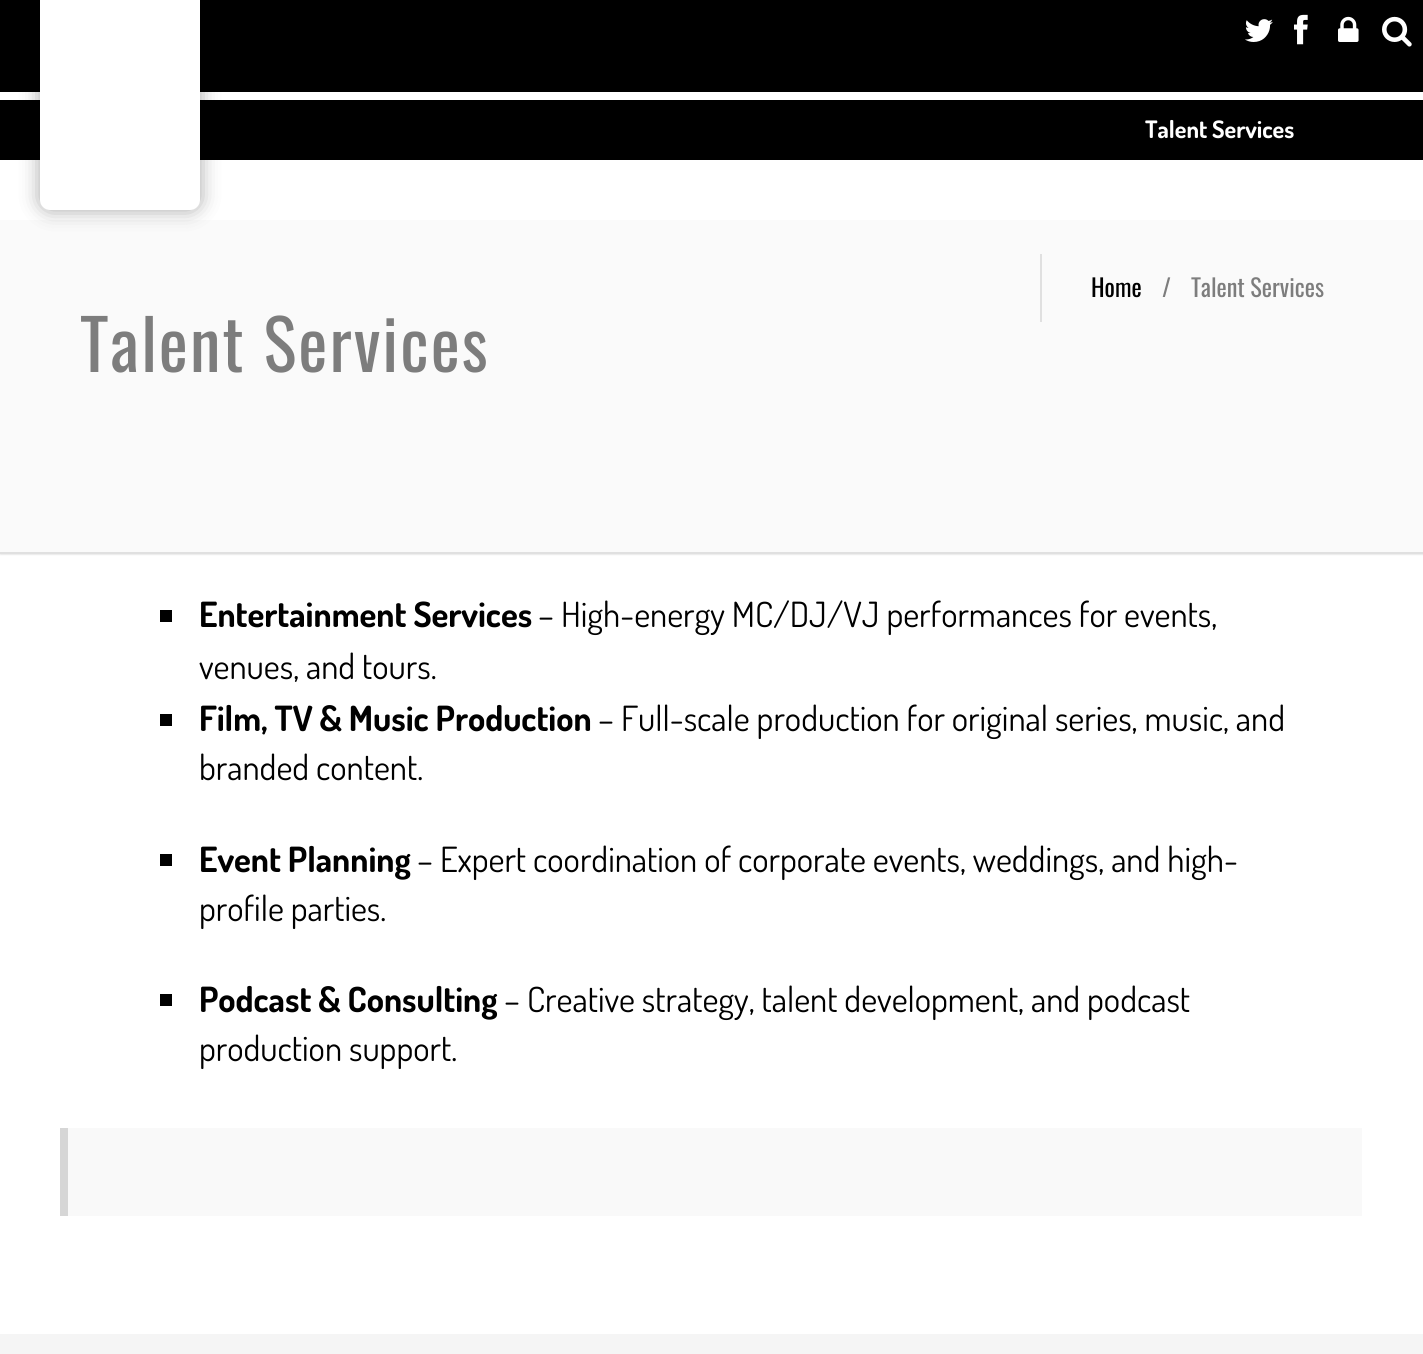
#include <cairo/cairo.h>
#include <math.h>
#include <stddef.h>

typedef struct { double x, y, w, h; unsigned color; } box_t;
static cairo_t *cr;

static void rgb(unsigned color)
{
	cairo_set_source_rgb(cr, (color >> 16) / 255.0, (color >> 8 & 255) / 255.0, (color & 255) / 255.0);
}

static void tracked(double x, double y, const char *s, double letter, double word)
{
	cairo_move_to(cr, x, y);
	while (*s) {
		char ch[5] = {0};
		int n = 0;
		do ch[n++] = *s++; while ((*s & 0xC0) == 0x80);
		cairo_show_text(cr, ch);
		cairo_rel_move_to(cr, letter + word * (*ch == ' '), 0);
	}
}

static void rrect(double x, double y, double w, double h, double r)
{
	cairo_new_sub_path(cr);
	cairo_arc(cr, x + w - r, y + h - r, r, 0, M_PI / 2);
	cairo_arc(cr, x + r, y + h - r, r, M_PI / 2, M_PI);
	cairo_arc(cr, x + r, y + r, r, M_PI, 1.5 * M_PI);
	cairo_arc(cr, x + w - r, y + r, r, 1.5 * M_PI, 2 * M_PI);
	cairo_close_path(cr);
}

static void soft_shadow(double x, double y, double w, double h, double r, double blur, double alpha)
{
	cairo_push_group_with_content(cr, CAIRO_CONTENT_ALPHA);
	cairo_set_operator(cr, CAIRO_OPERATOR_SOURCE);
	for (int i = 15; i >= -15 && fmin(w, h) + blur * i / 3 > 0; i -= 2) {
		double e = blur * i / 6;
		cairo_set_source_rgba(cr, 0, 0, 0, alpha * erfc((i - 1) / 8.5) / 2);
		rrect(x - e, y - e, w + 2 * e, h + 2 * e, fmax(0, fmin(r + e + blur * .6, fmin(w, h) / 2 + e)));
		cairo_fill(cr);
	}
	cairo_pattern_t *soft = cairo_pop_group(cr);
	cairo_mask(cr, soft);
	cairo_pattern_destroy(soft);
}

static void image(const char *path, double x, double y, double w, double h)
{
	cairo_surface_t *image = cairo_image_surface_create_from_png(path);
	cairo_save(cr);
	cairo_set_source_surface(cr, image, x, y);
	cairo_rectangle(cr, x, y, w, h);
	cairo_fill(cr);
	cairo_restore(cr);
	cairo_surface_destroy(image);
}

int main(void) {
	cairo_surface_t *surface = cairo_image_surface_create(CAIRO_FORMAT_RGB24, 1423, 1354);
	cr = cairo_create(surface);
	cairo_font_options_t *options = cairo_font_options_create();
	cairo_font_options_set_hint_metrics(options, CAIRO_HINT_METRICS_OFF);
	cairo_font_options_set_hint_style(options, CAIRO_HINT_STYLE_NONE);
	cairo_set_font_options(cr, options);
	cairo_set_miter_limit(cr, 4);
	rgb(0xffffff);
	cairo_paint(cr);
	rgb(0x000000);
	cairo_rectangle(cr, 0, 0, 1423, 92);
	cairo_fill(cr);
	cairo_rectangle(cr, 0, 100, 1423, 60);
	cairo_fill(cr);
	rgb(0x000000);
	soft_shadow(0, 220, 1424, 334, 0, 1, 0.2);
	rgb(0xfafafa);
	cairo_rectangle(cr, 0, 220, 1423, 332);
	cairo_fill(cr);
	rgb(0xffffff);
	cairo_rectangle(cr, 0, 218, 1423, 2);
	cairo_fill(cr);
	rgb(0x000000);
	soft_shadow(40, 0, 160, 210, 10, 10, 0.35);
	rgb(0xffffff);
	cairo_new_path(cr);
	cairo_move_to(cr, 40, 0);
	cairo_line_to(cr, 200, 0);
	cairo_line_to(cr, 200, 200);
	cairo_curve_to(cr, 200, 205.5, 195.5, 210, 190, 210);
	cairo_line_to(cr, 50, 210);
	cairo_curve_to(cr, 44.5, 210, 40, 205.5, 40, 200);
	cairo_close_path(cr);
	cairo_fill(cr);
	image("img/1.png", 1245, 19, 28, 23);
	image("img/2.png", 1294, 14, 14, 31);
	image("img/3.png", 1338, 16, 21, 26);
	image("img/4.png", 1382, 16, 30, 31);
	{
		static const box_t items[] = {
			{0, 552, 1423, 2, 0xe0e0e0},
			{1040, 254, 2, 68, 0xe0e0e0},
			{160, 610, 12, 12, 0x000000},
			{160, 714, 12, 12, 0x000000},
			{160, 854, 12, 12, 0x000000},
			{160, 994, 12, 12, 0x000000},
			{68, 1128, 1294, 88, 0xf9f9f9},
			{60, 1128, 8, 88, 0xd6d6d6},
			{0, 1334, 1423, 20, 0xf5f5f5},
		};
		for (size_t i = 0; i < sizeof items / sizeof *items; i++) {
			rgb(items[i].color);
			cairo_rectangle(cr, items[i].x, items[i].y, items[i].w, items[i].h);
			cairo_fill(cr);
		}
	}
	cairo_select_font_face(cr, "Dosis", CAIRO_FONT_SLANT_NORMAL, CAIRO_FONT_WEIGHT_BOLD);
	cairo_set_font_size(cr, 24);
	rgb(0xffffff);
	cairo_move_to(cr, 1145, 138);
	cairo_show_text(cr, "Talent Services");
	cairo_select_font_face(cr, "Oswald", CAIRO_FONT_SLANT_NORMAL, CAIRO_FONT_WEIGHT_NORMAL);
	cairo_set_font_size(cr, 24.25);
	rgb(0x000000);
	cairo_move_to(cr, 1091, 297);
	cairo_show_text(cr, "Home");
	rgb(0x7d7d7d);
	cairo_move_to(cr, 1162, 297);
	cairo_show_text(cr, "/");
	cairo_move_to(cr, 1191, 297);
	cairo_show_text(cr, "Talent Services");
	cairo_set_font_size(cr, 69.25);
	tracked(80, 372, "Talent Services", 2, 0);
	cairo_select_font_face(cr, "Dosis", CAIRO_FONT_SLANT_NORMAL, CAIRO_FONT_WEIGHT_BOLD);
	cairo_set_font_size(cr, 34.7);
	rgb(0x000000);
	cairo_move_to(cr, 199, 627);
	cairo_show_text(cr, "Entertainment Services");
	cairo_select_font_face(cr, "Dosis", CAIRO_FONT_SLANT_NORMAL, CAIRO_FONT_WEIGHT_NORMAL);
	cairo_move_to(cr, 538, 627);
	cairo_show_text(cr, "– High-energy MC/DJ/VJ performances for events,");
	cairo_move_to(cr, 199, 679);
	cairo_show_text(cr, "venues, and tours.");
	cairo_select_font_face(cr, "Dosis", CAIRO_FONT_SLANT_NORMAL, CAIRO_FONT_WEIGHT_BOLD);
	cairo_move_to(cr, 199, 731);
	cairo_show_text(cr, "Film, TV & Music Production");
	cairo_select_font_face(cr, "Dosis", CAIRO_FONT_SLANT_NORMAL, CAIRO_FONT_WEIGHT_NORMAL);
	cairo_move_to(cr, 598, 731);
	cairo_show_text(cr, "– Full-scale production for original series, music, and");
	cairo_move_to(cr, 199, 780);
	cairo_show_text(cr, "branded content.");
	cairo_select_font_face(cr, "Dosis", CAIRO_FONT_SLANT_NORMAL, CAIRO_FONT_WEIGHT_BOLD);
	cairo_move_to(cr, 199, 872);
	cairo_show_text(cr, "Event Planning");
	cairo_select_font_face(cr, "Dosis", CAIRO_FONT_SLANT_NORMAL, CAIRO_FONT_WEIGHT_NORMAL);
	cairo_move_to(cr, 417, 872);
	cairo_show_text(cr, "– Expert coordination of corporate events, weddings, and high-");
	cairo_move_to(cr, 199, 921);
	cairo_show_text(cr, "profile parties.");
	cairo_select_font_face(cr, "Dosis", CAIRO_FONT_SLANT_NORMAL, CAIRO_FONT_WEIGHT_BOLD);
	cairo_move_to(cr, 199, 1012);
	cairo_show_text(cr, "Podcast & Consulting");
	cairo_select_font_face(cr, "Dosis", CAIRO_FONT_SLANT_NORMAL, CAIRO_FONT_WEIGHT_NORMAL);
	cairo_move_to(cr, 504, 1012);
	cairo_show_text(cr, "– Creative strategy, talent development, and podcast");
	cairo_move_to(cr, 199, 1061);
	cairo_show_text(cr, "production support.");
	cairo_surface_write_to_png(surface, "page.png");
	cairo_font_options_destroy(options);
	cairo_destroy(cr);
	cairo_surface_destroy(surface);
	return 0;
}
